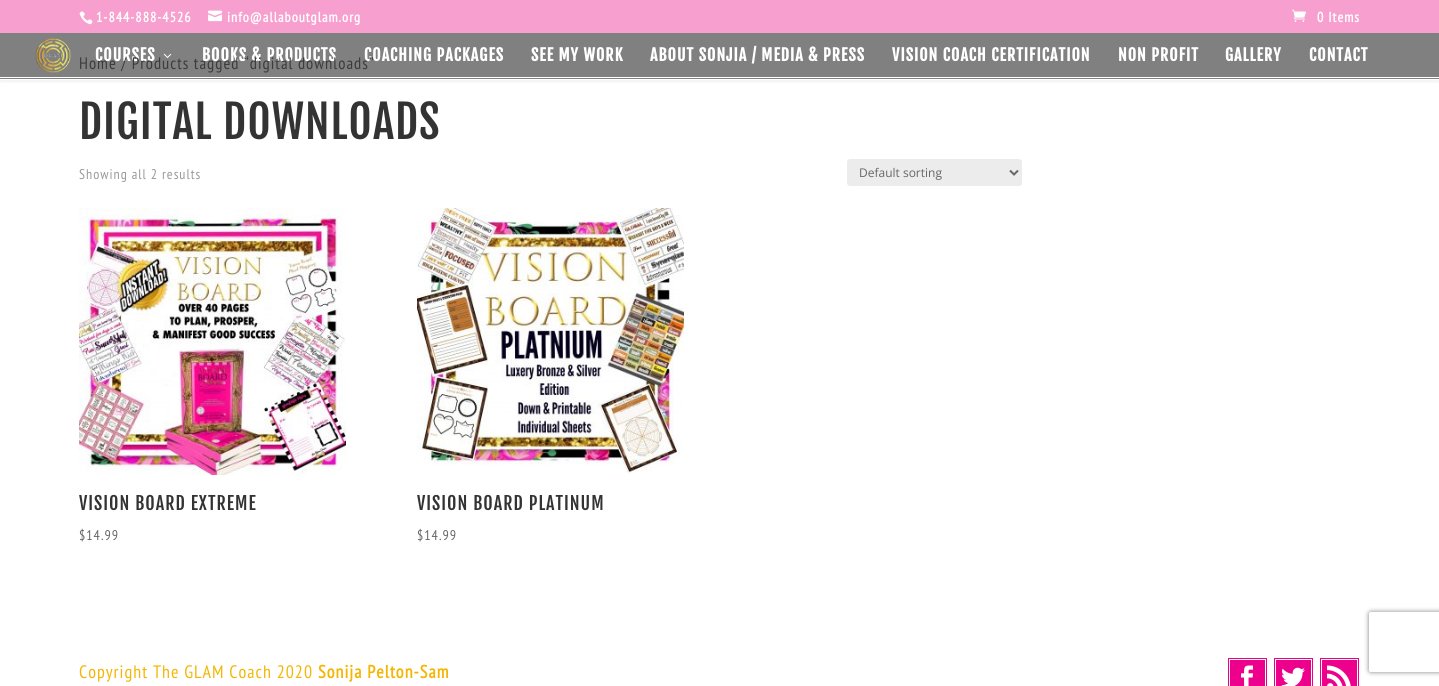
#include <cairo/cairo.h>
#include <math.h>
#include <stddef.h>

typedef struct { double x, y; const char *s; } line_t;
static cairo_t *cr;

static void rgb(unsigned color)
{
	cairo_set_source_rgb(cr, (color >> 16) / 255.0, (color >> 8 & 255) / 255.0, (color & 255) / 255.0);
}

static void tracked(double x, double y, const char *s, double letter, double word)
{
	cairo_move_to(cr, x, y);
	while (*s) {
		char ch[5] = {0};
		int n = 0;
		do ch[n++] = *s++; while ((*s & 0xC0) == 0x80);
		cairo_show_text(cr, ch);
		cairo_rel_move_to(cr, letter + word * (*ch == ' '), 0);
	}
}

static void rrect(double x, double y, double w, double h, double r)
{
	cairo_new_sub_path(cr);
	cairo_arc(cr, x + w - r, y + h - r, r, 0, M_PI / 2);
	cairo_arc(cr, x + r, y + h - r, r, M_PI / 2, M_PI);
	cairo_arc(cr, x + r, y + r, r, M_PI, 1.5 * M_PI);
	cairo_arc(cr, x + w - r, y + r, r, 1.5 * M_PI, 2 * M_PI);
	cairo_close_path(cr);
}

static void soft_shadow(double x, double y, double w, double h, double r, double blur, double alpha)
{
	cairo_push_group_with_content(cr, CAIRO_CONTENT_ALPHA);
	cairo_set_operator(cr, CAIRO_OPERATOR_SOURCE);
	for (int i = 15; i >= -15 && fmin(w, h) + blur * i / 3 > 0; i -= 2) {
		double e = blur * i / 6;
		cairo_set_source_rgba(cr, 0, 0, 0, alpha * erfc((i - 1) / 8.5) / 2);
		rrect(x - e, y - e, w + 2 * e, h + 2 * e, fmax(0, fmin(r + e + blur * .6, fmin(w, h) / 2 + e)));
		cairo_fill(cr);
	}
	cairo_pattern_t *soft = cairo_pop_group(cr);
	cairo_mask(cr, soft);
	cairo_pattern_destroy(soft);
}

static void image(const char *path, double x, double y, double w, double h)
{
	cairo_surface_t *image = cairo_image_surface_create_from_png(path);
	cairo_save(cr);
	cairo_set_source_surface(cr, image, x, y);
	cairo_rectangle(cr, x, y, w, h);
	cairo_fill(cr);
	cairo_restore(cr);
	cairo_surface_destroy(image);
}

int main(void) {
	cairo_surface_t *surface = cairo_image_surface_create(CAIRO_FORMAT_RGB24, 1439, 686);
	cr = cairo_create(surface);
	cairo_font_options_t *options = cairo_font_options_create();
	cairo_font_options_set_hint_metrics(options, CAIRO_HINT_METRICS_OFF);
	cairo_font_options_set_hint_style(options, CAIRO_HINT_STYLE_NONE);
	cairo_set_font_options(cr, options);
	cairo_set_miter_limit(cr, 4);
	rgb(0xffffff);
	cairo_paint(cr);
	rgb(0x808080);
	cairo_rectangle(cr, 0, 33, 1439, 46);
	cairo_fill(cr);
	cairo_save(cr);
	cairo_rectangle(cr, 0, 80, 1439, 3);
	cairo_clip(cr);
	rgb(0x000000);
	soft_shadow(0, 30, 1439, 50, 0, 3.5, 0.1);
	cairo_restore(cr);
	rgb(0xf79fce);
	cairo_rectangle(cr, 0, 0, 1439, 33);
	cairo_fill(cr);
	image("img/1.png", 79, 11, 14, 14);
	image("img/2.png", 208, 10, 14, 12);
	image("img/3.png", 1292, 9, 14, 13);
	rgb(0xffffff);
	cairo_rectangle(cr, 0, 77, 1439, 1);
	cairo_fill(cr);
	image("img/4.png", 35, 38, 36, 35);
	rgb(0xececec);
	rrect(847, 159, 175, 27, 3);
	cairo_fill(cr);
	cairo_new_path(cr);
	cairo_move_to(cr, 1010, 170.5);
	cairo_line_to(cr, 1014, 174.5);
	cairo_line_to(cr, 1018, 170.5);
	rgb(0x666666);
	cairo_stroke(cr);
	image("img/6.png", 79, 208, 267, 267);
	image("img/7.png", 417, 208, 267, 266);
	rgb(0xec008c);
	cairo_rectangle(cr, 1228, 658, 39, 28);
	cairo_fill(cr);
	cairo_rectangle(cr, 1229.5, 659.5, 36, 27);
	rgb(0xffffff);
	cairo_set_line_width(cr, 1);
	cairo_stroke(cr);
	image("img/8.png", 1241, 665, 13, 21);
	rgb(0xec008c);
	cairo_rectangle(cr, 1274, 658, 39, 28);
	cairo_fill(cr);
	cairo_rectangle(cr, 1275.5, 659.5, 36, 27);
	rgb(0xffffff);
	cairo_stroke(cr);
	image("img/9.png", 1281, 667, 24, 19);
	rgb(0xec008c);
	cairo_rectangle(cr, 1320, 658, 39, 28);
	cairo_fill(cr);
	cairo_rectangle(cr, 1321.5, 659.5, 36, 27);
	rgb(0xffffff);
	cairo_stroke(cr);
	image("img/10.png", 1327, 665, 24, 21);
	cairo_save(cr);
	cairo_set_fill_rule(cr, CAIRO_FILL_RULE_EVEN_ODD);
	cairo_new_path(cr);
	cairo_move_to(cr, 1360, 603);
	cairo_line_to(cr, 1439, 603);
	cairo_line_to(cr, 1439, 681);
	cairo_line_to(cr, 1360, 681);
	cairo_close_path(cr);
	cairo_move_to(cr, 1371, 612);
	cairo_line_to(cr, 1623, 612);
	cairo_curve_to(cr, 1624, 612, 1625, 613, 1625, 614);
	cairo_line_to(cr, 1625, 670);
	cairo_curve_to(cr, 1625, 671, 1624, 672, 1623, 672);
	cairo_line_to(cr, 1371, 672);
	cairo_curve_to(cr, 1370, 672, 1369, 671, 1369, 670);
	cairo_line_to(cr, 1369, 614);
	cairo_curve_to(cr, 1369, 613, 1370, 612, 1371, 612);
	cairo_close_path(cr);
	cairo_clip(cr);
	rgb(0x808080);
	soft_shadow(1369, 612, 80, 60, 2, 2.5, 1);
	cairo_restore(cr);
	cairo_select_font_face(cr, "PT Sans Narrow", CAIRO_FONT_SLANT_NORMAL, CAIRO_FONT_WEIGHT_BOLD);
	cairo_set_font_size(cr, 14);
	{
		static const line_t items[] = {
			{96, 22, "1-844-888-4526"},
			{227, 22, "info@allaboutglam.org"},
			{1317, 22, "0 Items"},
		};
		for (size_t i = 0; i < sizeof items / sizeof *items; i++) {
			tracked(items[i].x, items[i].y, items[i].s, 1, 0);
		}
	}
	cairo_select_font_face(cr, "Fjalla One", CAIRO_FONT_SLANT_NORMAL, CAIRO_FONT_WEIGHT_BOLD);
	cairo_set_font_size(cr, 16);
	{
		static const line_t items[] = {
			{95, 61, "COURSES"},
			{202, 61, "BOOKS & PRODUCTS"},
			{364, 61, "COACHING PACKAGES"},
			{531, 61, "SEE MY WORK"},
			{650, 61, "ABOUT SONJIA / MEDIA & PRESS"},
			{892, 61, "VISION COACH CERTIFICATION"},
			{1118, 61, "NON PROFIT"},
			{1225, 61, "GALLERY"},
			{1309, 61, "CONTACT"},
		};
		for (size_t i = 0; i < sizeof items / sizeof *items; i++) {
			tracked(items[i].x, items[i].y, items[i].s, 1, 0);
		}
	}
	cairo_select_font_face(cr, "PT Sans Narrow", CAIRO_FONT_SLANT_NORMAL, CAIRO_FONT_WEIGHT_NORMAL);
	cairo_set_font_size(cr, 16.6);
	rgb(0x3b3b3b);
	tracked(79, 69, "Home / Products tagged “digital downloads”", 1, 0);
	image("img/5.png", 163, 53, 9, 5);
	cairo_select_font_face(cr, "Fjalla One", CAIRO_FONT_SLANT_NORMAL, CAIRO_FONT_WEIGHT_NORMAL);
	cairo_set_font_size(cr, 45);
	rgb(0x333333);
	tracked(79, 139, "DIGITAL DOWNLOADS", 1, 0);
	cairo_select_font_face(cr, "PT Sans Narrow", CAIRO_FONT_SLANT_NORMAL, CAIRO_FONT_WEIGHT_NORMAL);
	cairo_set_font_size(cr, 14);
	rgb(0x999999);
	tracked(79, 179, "Showing all 2 results", 1, 0);
	cairo_select_font_face(cr, "Open Sans", CAIRO_FONT_SLANT_NORMAL, CAIRO_FONT_WEIGHT_NORMAL);
	cairo_set_font_size(cr, 12);
	rgb(0x666666);
	cairo_move_to(cr, 859, 177);
	cairo_show_text(cr, "Default sorting");
	cairo_select_font_face(cr, "Fjalla One", CAIRO_FONT_SLANT_NORMAL, CAIRO_FONT_WEIGHT_NORMAL);
	cairo_set_font_size(cr, 18);
	rgb(0x333333);
	tracked(79, 510, "VISION BOARD EXTREME", 1, 0);
	cairo_select_font_face(cr, "PT Sans Narrow", CAIRO_FONT_SLANT_NORMAL, CAIRO_FONT_WEIGHT_NORMAL);
	cairo_set_font_size(cr, 14);
	rgb(0x666666);
	tracked(79, 540, "$14.99", 1, 0);
	cairo_select_font_face(cr, "Fjalla One", CAIRO_FONT_SLANT_NORMAL, CAIRO_FONT_WEIGHT_NORMAL);
	cairo_set_font_size(cr, 18);
	rgb(0x333333);
	tracked(417, 510, "VISION BOARD PLATINUM", 1, 0);
	cairo_select_font_face(cr, "PT Sans Narrow", CAIRO_FONT_SLANT_NORMAL, CAIRO_FONT_WEIGHT_NORMAL);
	cairo_set_font_size(cr, 14);
	rgb(0x666666);
	tracked(417, 540, "$14.99", 1, 0);
	cairo_set_font_size(cr, 18);
	rgb(0xf3b605);
	tracked(79, 678, "Copyright The GLAM Coach 2020", 1, 0);
	cairo_select_font_face(cr, "PT Sans Narrow", CAIRO_FONT_SLANT_NORMAL, CAIRO_FONT_WEIGHT_BOLD);
	tracked(318, 678, "Sonija Pelton-Sam", 1, 0);
	cairo_surface_write_to_png(surface, "page.png");
	cairo_font_options_destroy(options);
	cairo_destroy(cr);
	cairo_surface_destroy(surface);
	return 0;
}
